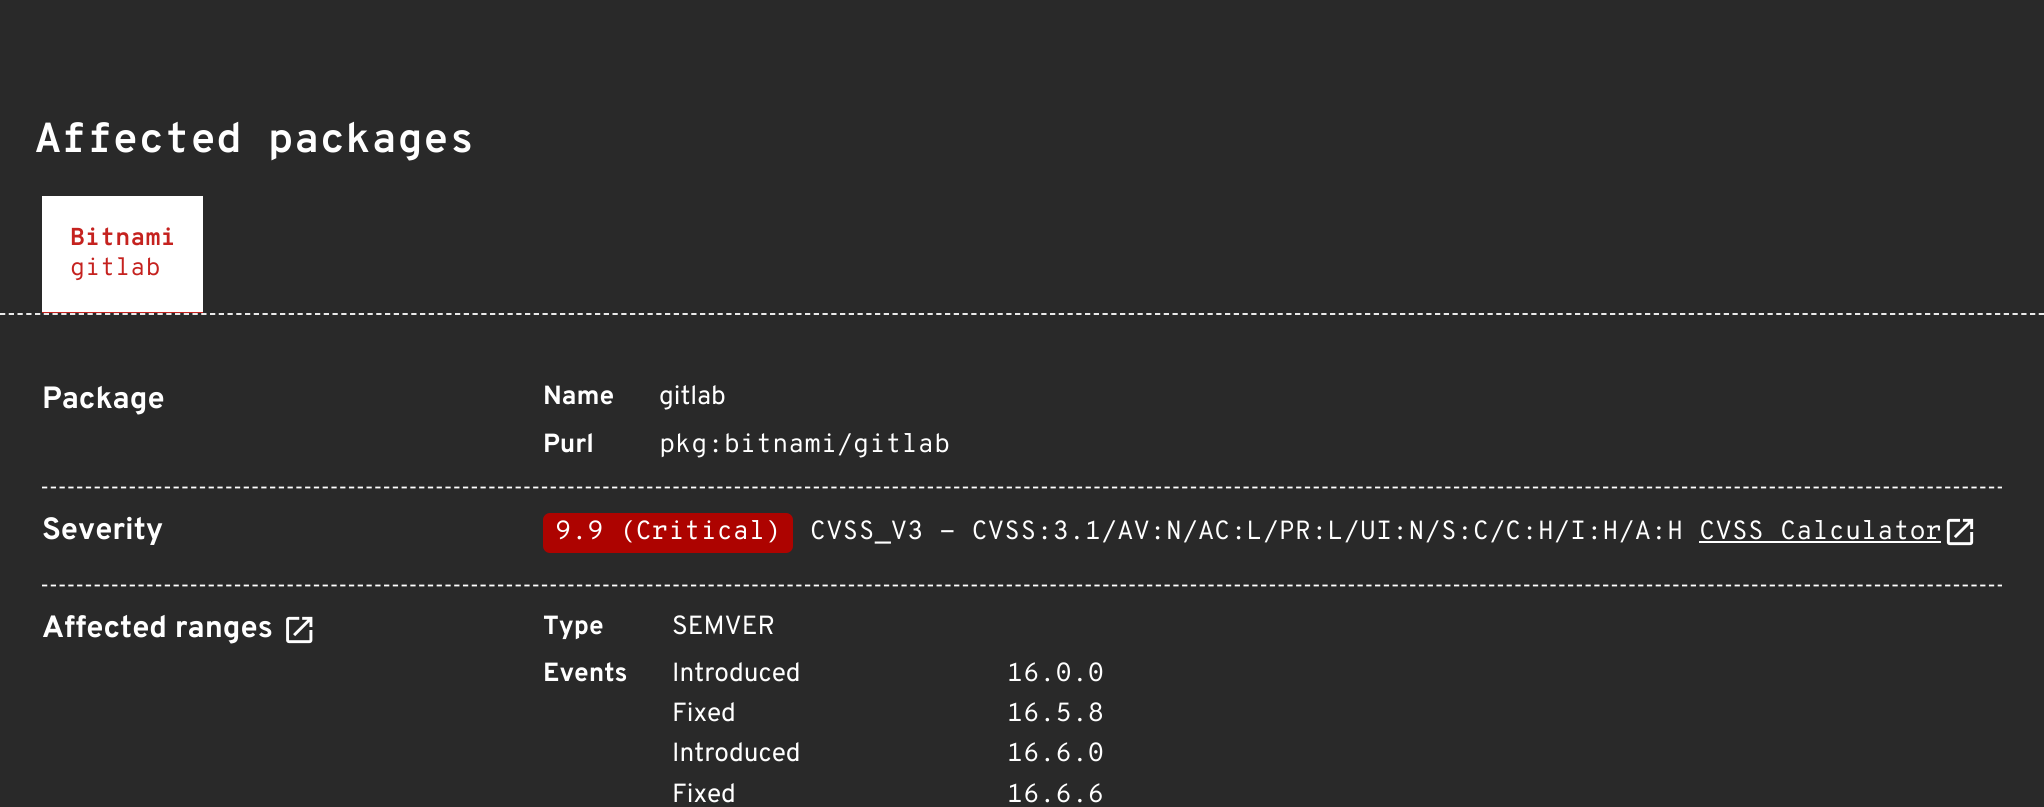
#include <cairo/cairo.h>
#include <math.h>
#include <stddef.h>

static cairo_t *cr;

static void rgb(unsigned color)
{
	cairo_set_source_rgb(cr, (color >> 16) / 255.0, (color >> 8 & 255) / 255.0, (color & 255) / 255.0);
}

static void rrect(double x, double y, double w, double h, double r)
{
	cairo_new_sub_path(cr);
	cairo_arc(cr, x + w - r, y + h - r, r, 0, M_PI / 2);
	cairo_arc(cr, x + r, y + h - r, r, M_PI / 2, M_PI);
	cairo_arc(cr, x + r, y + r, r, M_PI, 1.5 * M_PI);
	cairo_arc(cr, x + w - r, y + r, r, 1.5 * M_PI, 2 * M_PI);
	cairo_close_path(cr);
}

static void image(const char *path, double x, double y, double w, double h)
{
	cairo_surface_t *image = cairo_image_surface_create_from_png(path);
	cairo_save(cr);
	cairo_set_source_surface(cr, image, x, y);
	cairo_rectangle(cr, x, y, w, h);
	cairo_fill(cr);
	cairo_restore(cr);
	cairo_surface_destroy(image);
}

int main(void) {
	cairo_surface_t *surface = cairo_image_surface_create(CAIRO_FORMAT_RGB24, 2044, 807);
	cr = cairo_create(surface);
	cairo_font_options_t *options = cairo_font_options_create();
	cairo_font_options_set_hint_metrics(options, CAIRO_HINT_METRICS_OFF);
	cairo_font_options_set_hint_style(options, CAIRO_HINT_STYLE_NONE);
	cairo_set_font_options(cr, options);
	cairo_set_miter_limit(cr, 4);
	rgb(0x292929);
	cairo_paint(cr);
	rgb(0xffffff);
	cairo_rectangle(cr, 42, 196, 161, 116);
	cairo_fill(cr);
	rgb(0xc5221f);
	cairo_rectangle(cr, 42, 312, 161, 1);
	cairo_fill(cr);
	cairo_new_path(cr);
	cairo_move_to(cr, 0, 314);
	cairo_line_to(cr, 2044, 314);
	rgb(0xffffff);
	cairo_set_line_width(cr, 1.8);
	cairo_set_dash(cr, (double[]){5.25, 3.5}, 2, 0);
	cairo_stroke(cr);
	cairo_new_path(cr);
	cairo_move_to(cr, 42, 487.5);
	cairo_line_to(cr, 2002, 487.5);
	cairo_set_dash(cr, (double[]){5.25, 3.52}, 2, 0);
	cairo_stroke(cr);
	cairo_new_path(cr);
	cairo_move_to(cr, 42, 585.5);
	cairo_line_to(cr, 2002, 585.5);
	cairo_stroke(cr);
	rgb(0xad0300);
	rrect(543, 513, 250, 40, 7);
	cairo_fill(cr);
	rgb(0xffffff);
	cairo_rectangle(cr, 1699, 541, 242, 2);
	cairo_fill(cr);
	image("img/1.png", 1946, 518, 28, 28);
	image("img/2.png", 286, 616, 27, 28);
	cairo_select_font_face(cr, "Overpass Mono", CAIRO_FONT_SLANT_NORMAL, CAIRO_FONT_WEIGHT_BOLD);
	cairo_set_font_size(cr, 42);
	cairo_move_to(cr, 35, 152);
	cairo_show_text(cr, "Affected packages");
	cairo_set_font_size(cr, 24.5);
	rgb(0xc5221f);
	cairo_move_to(cr, 70, 245);
	cairo_show_text(cr, "Bitnami");
	cairo_select_font_face(cr, "Overpass Mono", CAIRO_FONT_SLANT_NORMAL, CAIRO_FONT_WEIGHT_NORMAL);
	cairo_move_to(cr, 70, 275);
	cairo_show_text(cr, "gitlab");
	cairo_select_font_face(cr, "Overpass", CAIRO_FONT_SLANT_NORMAL, CAIRO_FONT_WEIGHT_BOLD);
	cairo_set_font_size(cr, 30.75);
	rgb(0xffffff);
	cairo_move_to(cr, 42, 408);
	cairo_show_text(cr, "Package");
	cairo_set_font_size(cr, 26.25);
	cairo_move_to(cr, 543, 404);
	cairo_show_text(cr, "Name");
	cairo_select_font_face(cr, "Overpass", CAIRO_FONT_SLANT_NORMAL, CAIRO_FONT_WEIGHT_NORMAL);
	cairo_move_to(cr, 659, 404);
	cairo_show_text(cr, "gitlab");
	cairo_select_font_face(cr, "Overpass", CAIRO_FONT_SLANT_NORMAL, CAIRO_FONT_WEIGHT_BOLD);
	cairo_move_to(cr, 543, 452);
	cairo_show_text(cr, "Purl");
	cairo_select_font_face(cr, "Overpass Mono", CAIRO_FONT_SLANT_NORMAL, CAIRO_FONT_WEIGHT_NORMAL);
	cairo_move_to(cr, 659, 452);
	cairo_show_text(cr, "pkg:bitnami/gitlab");
	cairo_select_font_face(cr, "Overpass", CAIRO_FONT_SLANT_NORMAL, CAIRO_FONT_WEIGHT_BOLD);
	cairo_set_font_size(cr, 30.75);
	cairo_move_to(cr, 42, 539);
	cairo_show_text(cr, "Severity");
	cairo_select_font_face(cr, "Overpass Mono", CAIRO_FONT_SLANT_NORMAL, CAIRO_FONT_WEIGHT_NORMAL);
	cairo_set_font_size(cr, 26.25);
	cairo_move_to(cr, 555, 539);
	cairo_show_text(cr, "9.9 (Critical)");
	cairo_move_to(cr, 810, 539);
	cairo_show_text(cr, "CVSS_V3 - CVSS:3.1/AV:N/AC:L/PR:L/UI:N/S:C/C:H/I:H/A:H CVSS Calculator");
	cairo_select_font_face(cr, "Overpass", CAIRO_FONT_SLANT_NORMAL, CAIRO_FONT_WEIGHT_BOLD);
	cairo_set_font_size(cr, 30.75);
	cairo_move_to(cr, 42, 637);
	cairo_show_text(cr, "Affected ranges");
	cairo_set_font_size(cr, 26.25);
	cairo_move_to(cr, 543, 634);
	cairo_show_text(cr, "Type");
	cairo_select_font_face(cr, "Overpass", CAIRO_FONT_SLANT_NORMAL, CAIRO_FONT_WEIGHT_NORMAL);
	cairo_move_to(cr, 672, 634);
	cairo_show_text(cr, "SEMVER");
	cairo_select_font_face(cr, "Overpass", CAIRO_FONT_SLANT_NORMAL, CAIRO_FONT_WEIGHT_BOLD);
	cairo_move_to(cr, 543, 681);
	cairo_show_text(cr, "Events");
	cairo_select_font_face(cr, "Overpass", CAIRO_FONT_SLANT_NORMAL, CAIRO_FONT_WEIGHT_NORMAL);
	cairo_move_to(cr, 672, 681);
	cairo_show_text(cr, "Introduced");
	cairo_select_font_face(cr, "Overpass Mono", CAIRO_FONT_SLANT_NORMAL, CAIRO_FONT_WEIGHT_NORMAL);
	cairo_move_to(cr, 1007, 681);
	cairo_show_text(cr, "16.0.0");
	cairo_select_font_face(cr, "Overpass", CAIRO_FONT_SLANT_NORMAL, CAIRO_FONT_WEIGHT_NORMAL);
	cairo_move_to(cr, 672, 721);
	cairo_show_text(cr, "Fixed");
	cairo_select_font_face(cr, "Overpass Mono", CAIRO_FONT_SLANT_NORMAL, CAIRO_FONT_WEIGHT_NORMAL);
	cairo_move_to(cr, 1007, 721);
	cairo_show_text(cr, "16.5.8");
	cairo_select_font_face(cr, "Overpass", CAIRO_FONT_SLANT_NORMAL, CAIRO_FONT_WEIGHT_NORMAL);
	cairo_move_to(cr, 672, 761);
	cairo_show_text(cr, "Introduced");
	cairo_select_font_face(cr, "Overpass Mono", CAIRO_FONT_SLANT_NORMAL, CAIRO_FONT_WEIGHT_NORMAL);
	cairo_move_to(cr, 1007, 761);
	cairo_show_text(cr, "16.6.0");
	cairo_select_font_face(cr, "Overpass", CAIRO_FONT_SLANT_NORMAL, CAIRO_FONT_WEIGHT_NORMAL);
	cairo_move_to(cr, 672, 802);
	cairo_show_text(cr, "Fixed");
	cairo_select_font_face(cr, "Overpass Mono", CAIRO_FONT_SLANT_NORMAL, CAIRO_FONT_WEIGHT_NORMAL);
	cairo_move_to(cr, 1007, 802);
	cairo_show_text(cr, "16.6.6");
	cairo_surface_write_to_png(surface, "page.png");
	cairo_font_options_destroy(options);
	cairo_destroy(cr);
	cairo_surface_destroy(surface);
	return 0;
}
